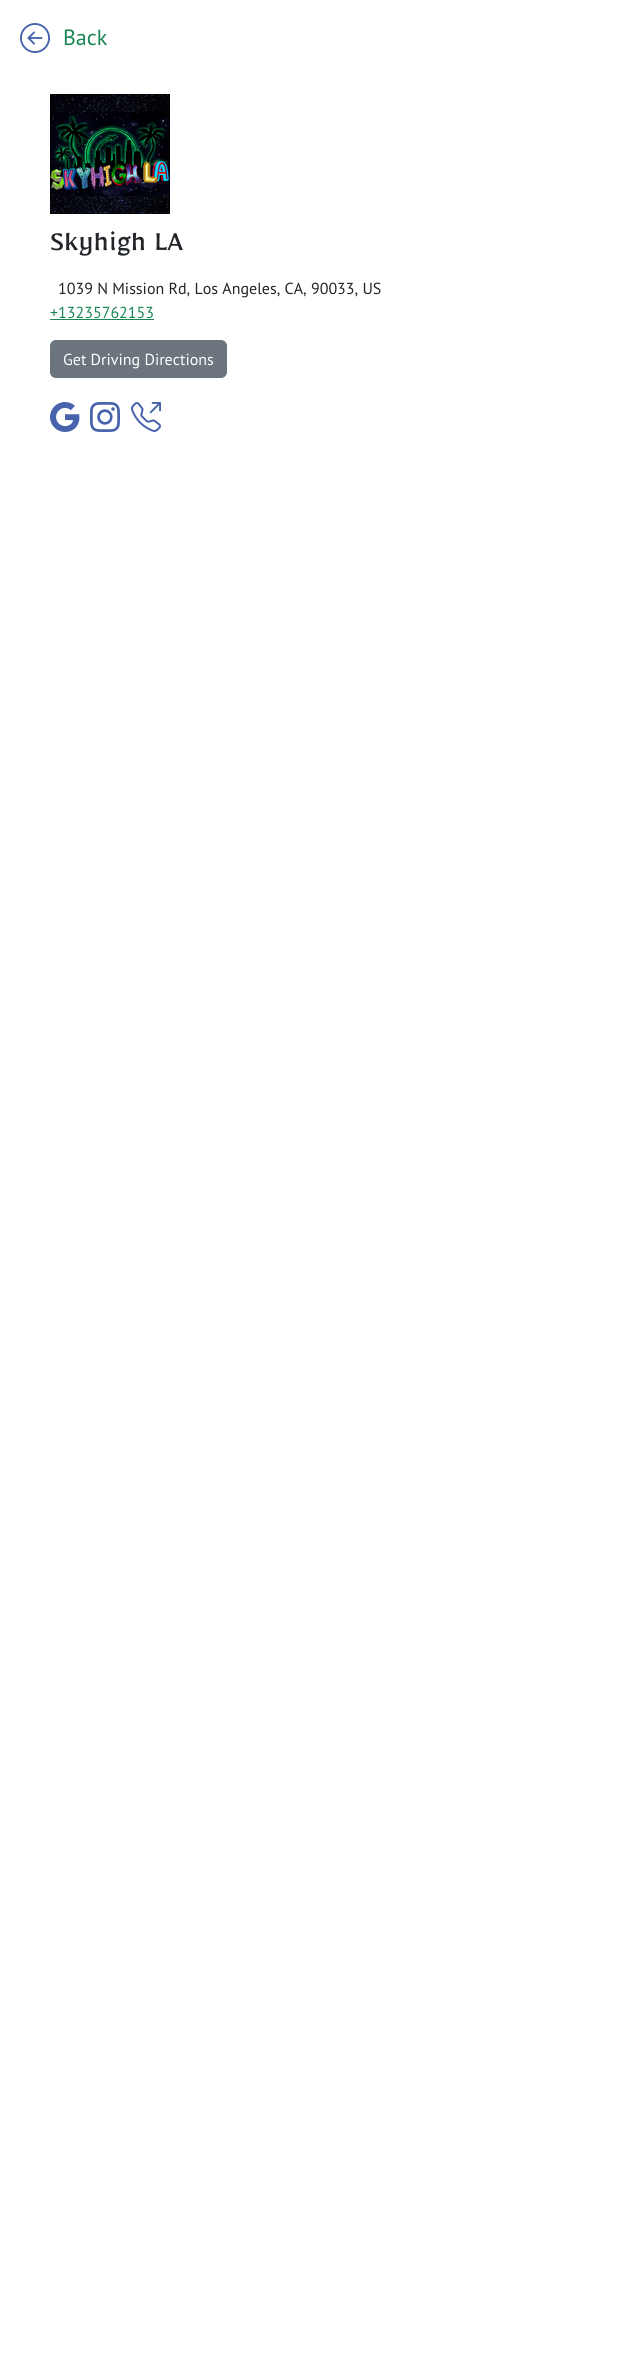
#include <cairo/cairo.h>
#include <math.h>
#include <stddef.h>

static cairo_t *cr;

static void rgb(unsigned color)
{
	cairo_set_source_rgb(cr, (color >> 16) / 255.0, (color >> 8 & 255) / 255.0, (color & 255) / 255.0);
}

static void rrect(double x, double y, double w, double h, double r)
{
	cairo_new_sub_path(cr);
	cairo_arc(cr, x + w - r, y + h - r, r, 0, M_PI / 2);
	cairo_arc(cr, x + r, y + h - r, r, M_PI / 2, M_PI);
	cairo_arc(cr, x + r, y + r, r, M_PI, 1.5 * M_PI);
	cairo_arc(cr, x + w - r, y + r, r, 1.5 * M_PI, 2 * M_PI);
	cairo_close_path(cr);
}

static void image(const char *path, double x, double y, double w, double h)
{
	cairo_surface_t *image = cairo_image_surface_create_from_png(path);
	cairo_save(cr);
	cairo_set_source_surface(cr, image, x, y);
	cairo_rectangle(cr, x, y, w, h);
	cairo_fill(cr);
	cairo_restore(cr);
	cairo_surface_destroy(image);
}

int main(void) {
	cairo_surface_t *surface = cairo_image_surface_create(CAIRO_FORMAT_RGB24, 621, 2373);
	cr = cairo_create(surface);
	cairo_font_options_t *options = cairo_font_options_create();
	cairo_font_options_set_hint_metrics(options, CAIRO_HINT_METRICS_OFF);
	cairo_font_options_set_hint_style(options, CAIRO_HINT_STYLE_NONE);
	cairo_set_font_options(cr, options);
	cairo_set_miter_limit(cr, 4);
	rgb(0xffffff);
	cairo_paint(cr);
	image("img/1.png", 20, 23, 30, 30);
	image("img/2.png", 50, 94, 120, 120);
	rgb(0x198754);
	cairo_rectangle(cr, 50, 319, 104, 1);
	cairo_fill(cr);
	rgb(0x6c757d);
	rrect(50.5, 340.5, 176, 37, 5.5);
	cairo_fill_preserve(cr);
	cairo_set_line_width(cr, 1);
	cairo_stroke(cr);
	image("img/3.png", 50, 402, 30, 30);
	image("img/4.png", 90, 402, 30, 30);
	image("img/5.png", 131, 402, 30, 30);
	cairo_select_font_face(cr, "PT Sans", CAIRO_FONT_SLANT_NORMAL, CAIRO_FONT_WEIGHT_NORMAL);
	cairo_set_font_size(cr, 22);
	rgb(0x198754);
	cairo_move_to(cr, 63, 45);
	cairo_show_text(cr, "Back");
	cairo_select_font_face(cr, "Mirza", CAIRO_FONT_SLANT_NORMAL, CAIRO_FONT_WEIGHT_NORMAL);
	cairo_set_font_size(cr, 31.5);
	rgb(0x212529);
	cairo_move_to(cr, 50, 250);
	cairo_show_text(cr, "Skyhigh LA");
	cairo_select_font_face(cr, "PT Sans", CAIRO_FONT_SLANT_NORMAL, CAIRO_FONT_WEIGHT_NORMAL);
	cairo_set_font_size(cr, 16);
	cairo_move_to(cr, 58, 294);
	cairo_show_text(cr, "1039 N Mission Rd, Los Angeles, CA, 90033, US");
	rgb(0x198754);
	cairo_move_to(cr, 50, 318);
	cairo_show_text(cr, "+13235762153");
	rgb(0xffffff);
	cairo_move_to(cr, 63, 365);
	cairo_show_text(cr, "Get Driving Directions");
	cairo_surface_write_to_png(surface, "page.png");
	cairo_font_options_destroy(options);
	cairo_destroy(cr);
	cairo_surface_destroy(surface);
	return 0;
}
